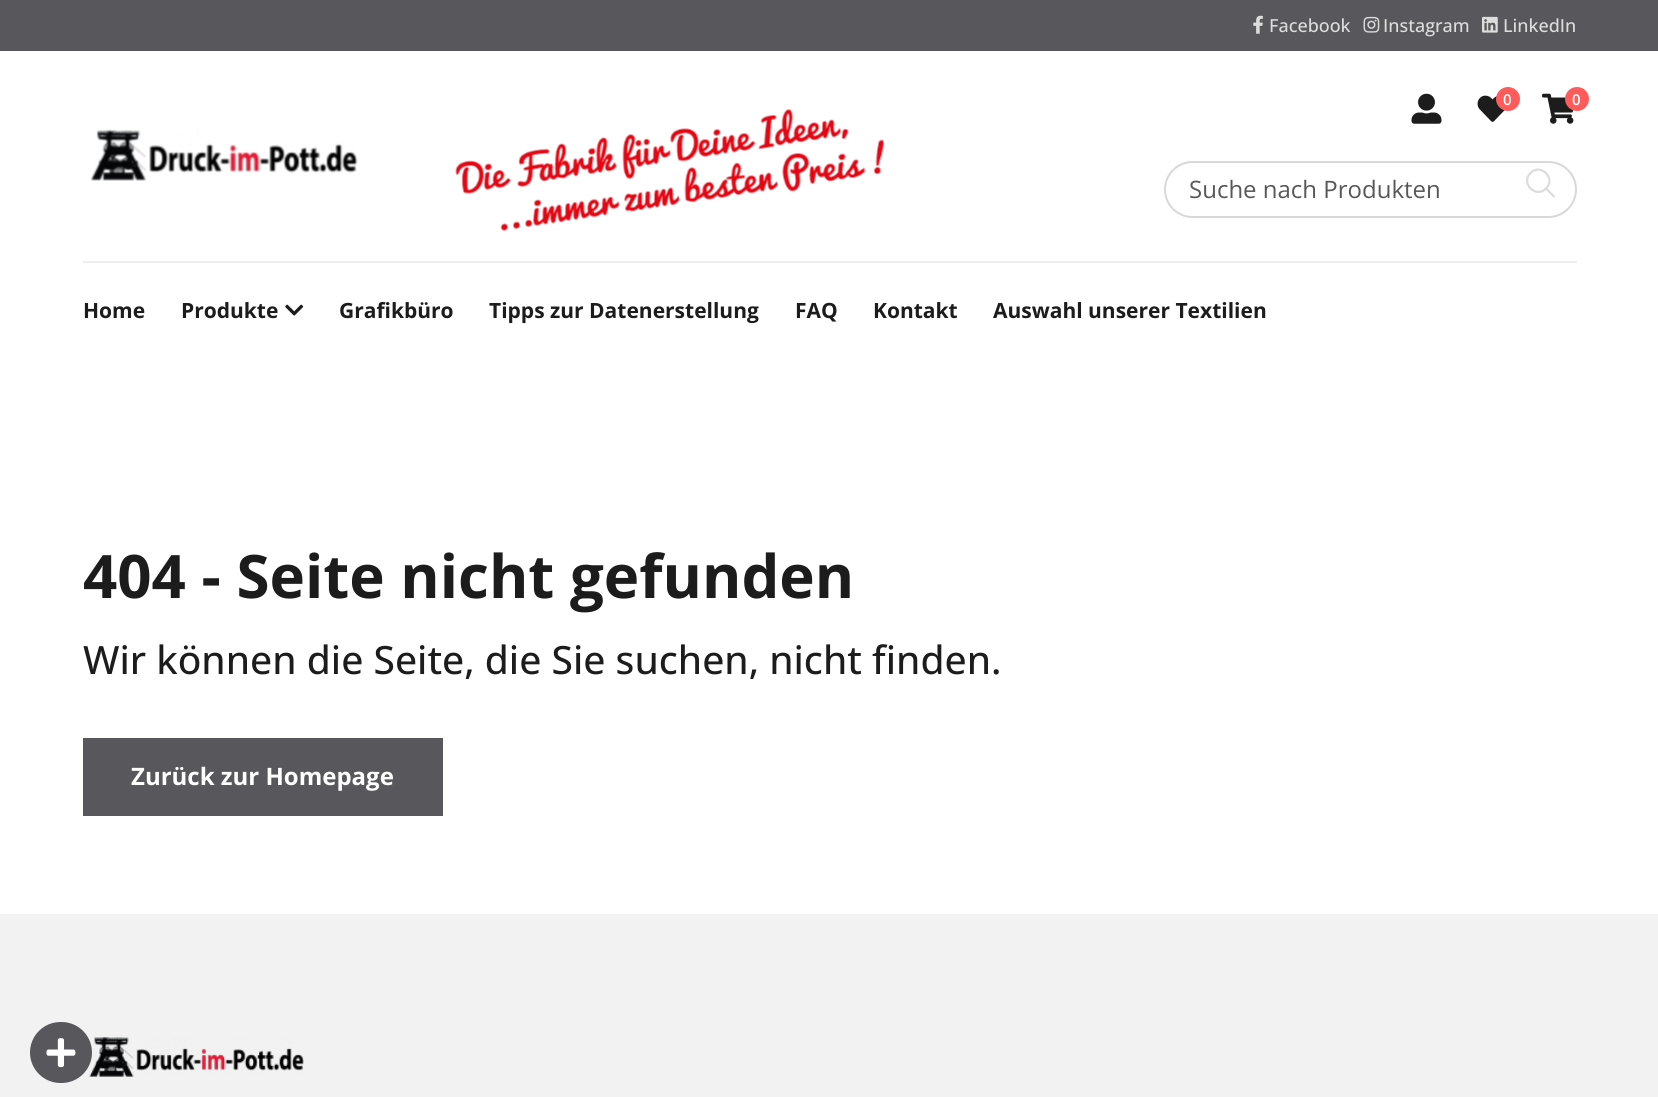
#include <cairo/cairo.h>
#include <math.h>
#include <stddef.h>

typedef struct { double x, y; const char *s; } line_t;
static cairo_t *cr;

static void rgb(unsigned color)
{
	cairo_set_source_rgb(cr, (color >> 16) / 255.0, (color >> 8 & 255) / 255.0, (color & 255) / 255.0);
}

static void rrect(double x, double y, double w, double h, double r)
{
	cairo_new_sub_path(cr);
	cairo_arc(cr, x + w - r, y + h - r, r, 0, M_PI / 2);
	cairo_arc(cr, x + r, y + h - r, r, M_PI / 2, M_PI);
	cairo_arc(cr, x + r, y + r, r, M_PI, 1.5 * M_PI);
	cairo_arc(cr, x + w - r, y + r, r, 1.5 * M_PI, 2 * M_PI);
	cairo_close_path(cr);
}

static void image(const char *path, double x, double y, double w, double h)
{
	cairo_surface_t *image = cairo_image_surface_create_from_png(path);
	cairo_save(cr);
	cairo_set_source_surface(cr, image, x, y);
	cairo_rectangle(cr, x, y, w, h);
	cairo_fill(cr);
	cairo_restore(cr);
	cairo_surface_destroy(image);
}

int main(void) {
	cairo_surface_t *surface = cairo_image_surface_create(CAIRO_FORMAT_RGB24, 1658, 1097);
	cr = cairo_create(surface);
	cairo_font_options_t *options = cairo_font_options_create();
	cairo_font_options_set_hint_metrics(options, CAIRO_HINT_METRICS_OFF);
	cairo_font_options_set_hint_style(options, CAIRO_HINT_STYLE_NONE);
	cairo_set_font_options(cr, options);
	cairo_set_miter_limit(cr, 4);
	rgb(0xffffff);
	cairo_paint(cr);
	rgb(0x58575b);
	cairo_rectangle(cr, 0, 0, 1658, 51);
	cairo_fill(cr);
	image("img/1.png", 1253, 15, 10, 19);
	image("img/2.png", 1363, 16, 17, 17);
	image("img/3.png", 1482, 16, 16, 17);
	image("img/4.png", 90, 129, 268, 52);
	image("img/5.png", 455, 109, 429, 122);
	image("img/6.png", 1411, 93, 31, 31);
	image("img/7.png", 1477, 95, 28, 27);
	rgb(0xff5b5b);
	cairo_arc(cr, 1508, 99, 12, 0, 2 * M_PI);
	cairo_fill(cr);
	image("img/8.png", 1542, 93, 32, 31);
	cairo_arc(cr, 1577, 99, 12, 0, 2 * M_PI);
	cairo_fill(cr);
	rrect(1165, 162, 411, 55, 27.5);
	rgb(0xd8d8d8);
	cairo_stroke(cr);
	cairo_new_path(cr);
	cairo_move_to(cr, 1554, 196.5);
	cairo_line_to(cr, 1546, 188.5);
	cairo_move_to(cr, 1546, 188.5);
	cairo_curve_to(cr, 1556.5, 178.5, 1540.5, 162.5, 1530.5, 173);
	cairo_curve_to(cr, 1520, 183, 1536, 199, 1546, 188.5);
	cairo_close_path(cr);
	rgb(0xdcdcdc);
	cairo_set_line_width(cr, 2.2);
	cairo_set_line_cap(cr, CAIRO_LINE_CAP_ROUND);
	cairo_set_line_join(cr, CAIRO_LINE_JOIN_ROUND);
	cairo_stroke(cr);
	rgb(0xeeeeee);
	cairo_rectangle(cr, 83, 261, 1494, 2);
	cairo_fill(cr);
	image("img/9.png", 285, 304, 19, 12);
	rgb(0x58575b);
	cairo_rectangle(cr, 83, 738, 360, 78);
	cairo_fill(cr);
	rgb(0xf2f2f2);
	cairo_rectangle(cr, 0, 914, 1658, 183);
	cairo_fill(cr);
	image("img/10.png", 89, 1037, 215, 40);
	rgb(0x58575b);
	rrect(30, 1022, 62, 61, 30.5);
	cairo_fill(cr);
	image("img/11.png", 46, 1038, 30, 30);
	cairo_select_font_face(cr, "Open Sans Medium", CAIRO_FONT_SLANT_NORMAL, CAIRO_FONT_WEIGHT_NORMAL);
	cairo_set_font_size(cr, 18);
	rgb(0xdddddd);
	{
		static const line_t items[] = {
			{1269, 32, "Facebook"},
			{1383, 32, "Instagram"},
			{1503, 32, "LinkedIn"},
		};
		for (size_t i = 0; i < sizeof items / sizeof *items; i++) {
			cairo_move_to(cr, items[i].x, items[i].y);
			cairo_show_text(cr, items[i].s);
		}
	}
	cairo_select_font_face(cr, "Open Sans SemiBold", CAIRO_FONT_SLANT_NORMAL, CAIRO_FONT_WEIGHT_NORMAL);
	cairo_set_font_size(cr, 15);
	rgb(0xffffff);
	cairo_move_to(cr, 1503, 105);
	cairo_show_text(cr, "0");
	cairo_move_to(cr, 1572, 105);
	cairo_show_text(cr, "0");
	cairo_select_font_face(cr, "Open Sans", CAIRO_FONT_SLANT_NORMAL, CAIRO_FONT_WEIGHT_NORMAL);
	cairo_set_font_size(cr, 24);
	rgb(0x575757);
	cairo_move_to(cr, 1189, 198);
	cairo_show_text(cr, "Suche nach Produkten");
	cairo_select_font_face(cr, "Open Sans", CAIRO_FONT_SLANT_NORMAL, CAIRO_FONT_WEIGHT_BOLD);
	cairo_set_font_size(cr, 21);
	rgb(0x1c1c1c);
	{
		static const line_t items[] = {
			{83, 318, "Home"},
			{181, 318, "Produkte"},
			{339, 318, "Grafikbüro"},
			{489, 318, "Tipps zur Datenerstellung"},
			{795, 318, "FAQ"},
			{873, 318, "Kontakt"},
			{993, 318, "Auswahl unserer Textilien"},
		};
		for (size_t i = 0; i < sizeof items / sizeof *items; i++) {
			cairo_move_to(cr, items[i].x, items[i].y);
			cairo_show_text(cr, items[i].s);
		}
	}
	cairo_set_font_size(cr, 60);
	cairo_move_to(cr, 83, 598);
	cairo_show_text(cr, "404 - Seite nicht gefunden");
	cairo_select_font_face(cr, "Open Sans Medium", CAIRO_FONT_SLANT_NORMAL, CAIRO_FONT_WEIGHT_NORMAL);
	cairo_set_font_size(cr, 39);
	cairo_move_to(cr, 83, 674);
	cairo_show_text(cr, "Wir können die Seite, die Sie suchen, nicht finden.");
	cairo_select_font_face(cr, "Open Sans", CAIRO_FONT_SLANT_NORMAL, CAIRO_FONT_WEIGHT_BOLD);
	cairo_set_font_size(cr, 24);
	rgb(0xffffff);
	cairo_move_to(cr, 131, 785);
	cairo_show_text(cr, "Zurück zur Homepage");
	cairo_surface_write_to_png(surface, "page.png");
	cairo_font_options_destroy(options);
	cairo_destroy(cr);
	cairo_surface_destroy(surface);
	return 0;
}
